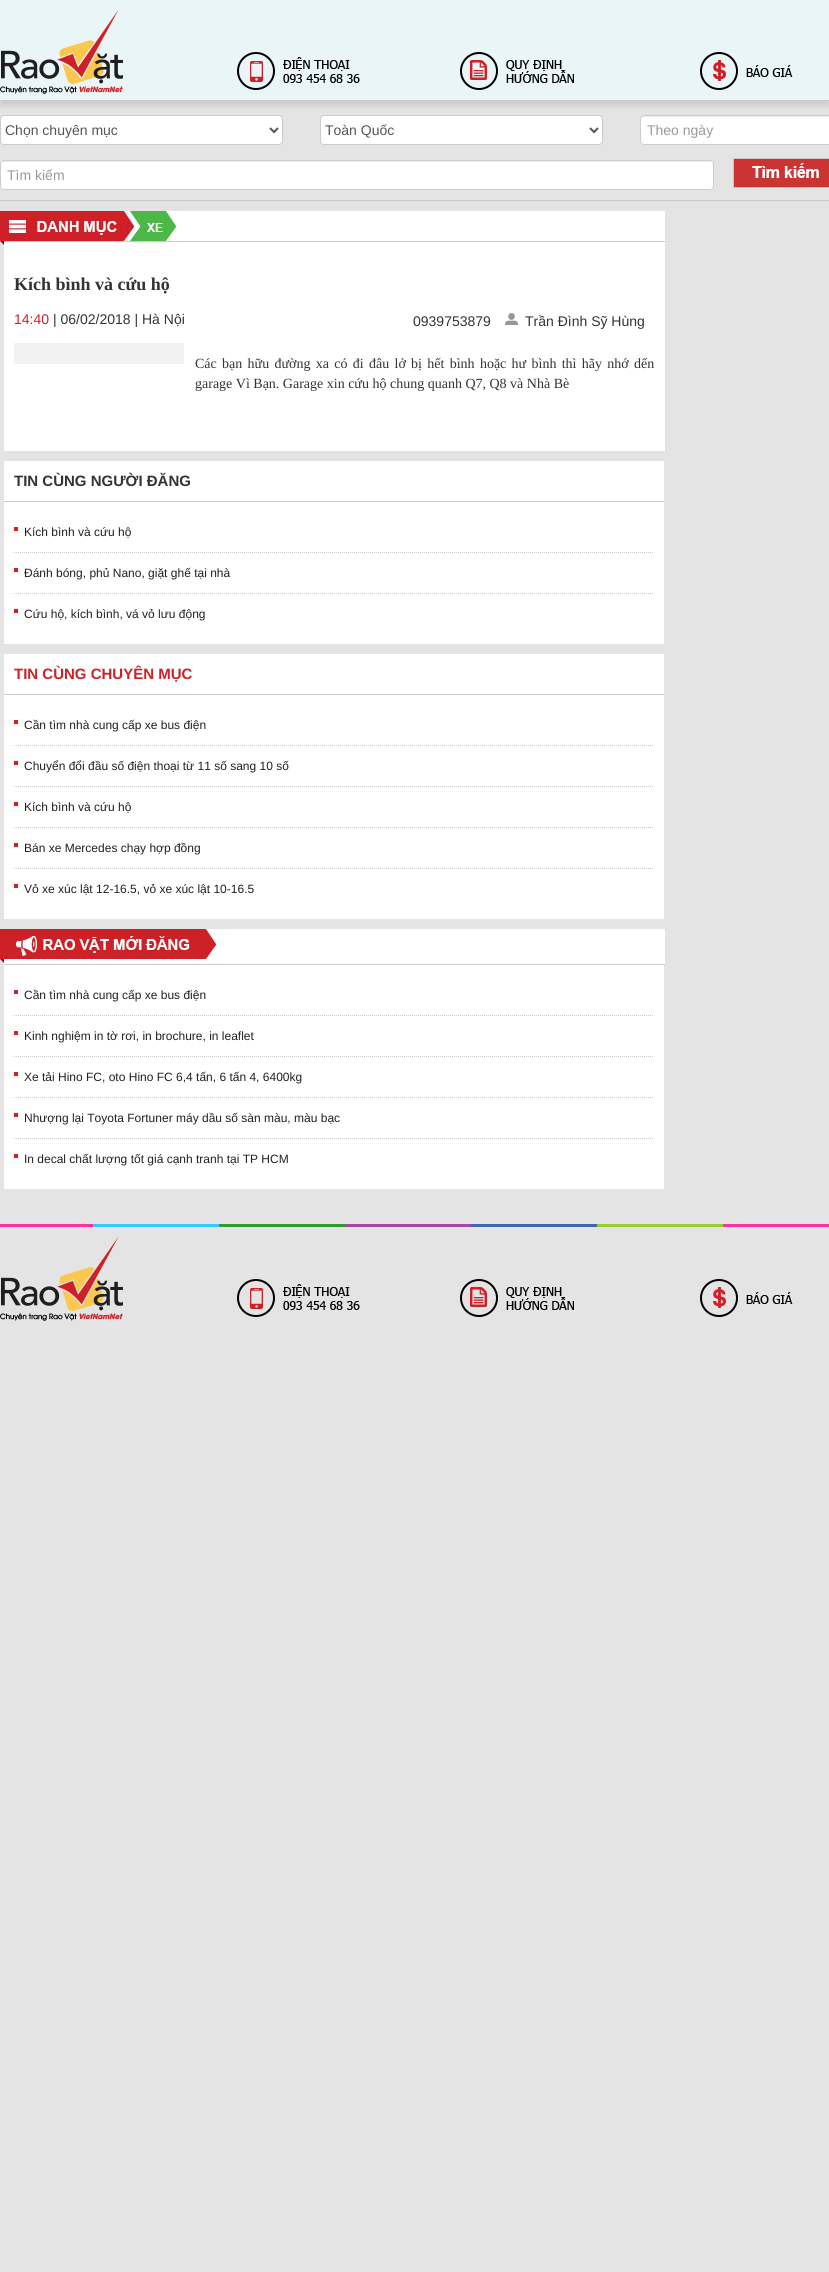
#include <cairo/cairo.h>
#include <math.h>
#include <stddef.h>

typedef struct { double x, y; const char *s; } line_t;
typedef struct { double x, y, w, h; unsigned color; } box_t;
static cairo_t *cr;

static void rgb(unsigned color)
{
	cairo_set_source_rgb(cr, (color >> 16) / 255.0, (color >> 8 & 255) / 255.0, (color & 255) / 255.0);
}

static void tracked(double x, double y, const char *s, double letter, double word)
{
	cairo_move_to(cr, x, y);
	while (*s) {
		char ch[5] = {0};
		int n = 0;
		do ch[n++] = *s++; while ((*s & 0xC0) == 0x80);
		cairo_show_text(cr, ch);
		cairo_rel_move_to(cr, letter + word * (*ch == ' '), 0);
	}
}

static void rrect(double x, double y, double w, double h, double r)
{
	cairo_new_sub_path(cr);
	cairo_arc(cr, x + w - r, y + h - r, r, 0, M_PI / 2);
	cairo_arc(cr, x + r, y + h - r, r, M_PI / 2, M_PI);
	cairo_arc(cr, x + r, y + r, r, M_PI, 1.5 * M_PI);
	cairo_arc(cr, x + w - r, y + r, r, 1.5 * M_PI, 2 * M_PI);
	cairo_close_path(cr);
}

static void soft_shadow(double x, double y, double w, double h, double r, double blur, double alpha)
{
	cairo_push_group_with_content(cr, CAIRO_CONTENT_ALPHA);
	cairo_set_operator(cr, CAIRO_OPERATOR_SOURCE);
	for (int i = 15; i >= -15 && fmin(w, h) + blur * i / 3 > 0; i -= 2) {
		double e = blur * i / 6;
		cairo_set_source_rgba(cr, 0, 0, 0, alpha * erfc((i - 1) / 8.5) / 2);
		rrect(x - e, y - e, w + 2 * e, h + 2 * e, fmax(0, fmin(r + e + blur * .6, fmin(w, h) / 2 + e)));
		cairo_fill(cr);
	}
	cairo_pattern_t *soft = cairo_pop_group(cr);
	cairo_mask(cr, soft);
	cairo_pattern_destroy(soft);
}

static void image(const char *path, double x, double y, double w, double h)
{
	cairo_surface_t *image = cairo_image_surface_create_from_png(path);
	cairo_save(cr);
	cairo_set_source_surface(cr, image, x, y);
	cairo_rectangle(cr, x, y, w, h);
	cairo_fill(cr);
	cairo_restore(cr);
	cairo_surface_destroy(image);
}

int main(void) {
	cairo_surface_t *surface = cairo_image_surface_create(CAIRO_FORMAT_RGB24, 829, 2272);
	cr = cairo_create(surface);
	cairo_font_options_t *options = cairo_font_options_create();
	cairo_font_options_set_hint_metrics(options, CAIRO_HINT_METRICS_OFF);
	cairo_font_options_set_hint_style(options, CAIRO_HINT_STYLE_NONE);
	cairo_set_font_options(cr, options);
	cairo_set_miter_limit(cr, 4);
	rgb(0xe4e4e4);
	cairo_paint(cr);
	rgb(0xcbcbcb);
	soft_shadow(0, 5, 829, 101, 0, 2.5, 1);
	rgb(0xeaf5f8);
	cairo_rectangle(cr, 0, 0, 829, 100);
	cairo_fill(cr);
	rgb(0xcbcbcb);
	cairo_rectangle(cr, 0, 100, 829, 1);
	cairo_fill(cr);
	image("img/1.png", 0, 10, 123, 84);
	image("img/2.png", 237, 52, 123, 38);
	image("img/3.png", 460, 52, 114, 38);
	image("img/4.png", 700, 52, 93, 38);
	rgb(0xc7c7c7);
	cairo_rectangle(cr, 0, 200, 829, 1);
	cairo_fill(cr);
	rgb(0xffffff);
	rrect(0.5, 115.5, 282, 29, 3.5);
	cairo_fill_preserve(cr);
	rgb(0xcccccc);
	cairo_set_line_width(cr, 1);
	cairo_stroke(cr);
	cairo_new_path(cr);
	cairo_move_to(cr, 270, 128);
	cairo_line_to(cr, 274, 132);
	cairo_line_to(cr, 278, 128);
	rgb(0x555555);
	cairo_set_line_width(cr, 2);
	cairo_stroke(cr);
	rgb(0xffffff);
	rrect(320.5, 115.5, 282, 29, 3.5);
	cairo_fill_preserve(cr);
	rgb(0xcccccc);
	cairo_set_line_width(cr, 1);
	cairo_stroke(cr);
	cairo_new_path(cr);
	cairo_move_to(cr, 590, 128);
	cairo_line_to(cr, 594, 132);
	cairo_line_to(cr, 598, 128);
	rgb(0x555555);
	cairo_set_line_width(cr, 2);
	cairo_stroke(cr);
	rgb(0xffffff);
	rrect(640, 115, 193, 30, 4);
	cairo_fill(cr);
	rgb(0xececec);
	cairo_new_path(cr);
	cairo_move_to(cr, 644, 117);
	cairo_line_to(cr, 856, 117);
	cairo_curve_to(cr, 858, 117, 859, 118, 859, 120);
	cairo_line_to(cr, 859, 119);
	cairo_curve_to(cr, 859, 117, 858, 116, 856, 116);
	cairo_line_to(cr, 644, 116);
	cairo_curve_to(cr, 642, 116, 641, 117, 641, 119);
	cairo_line_to(cr, 641, 120);
	cairo_curve_to(cr, 641, 118, 642, 117, 644, 117);
	cairo_close_path(cr);
	cairo_fill(cr);
	rrect(640.5, 115.5, 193, 29, 3.5);
	rgb(0xcccccc);
	cairo_set_line_width(cr, 1);
	cairo_stroke(cr);
	rgb(0xffffff);
	rrect(0, 160, 714, 30, 4);
	cairo_fill(cr);
	rgb(0xececec);
	cairo_new_path(cr);
	cairo_move_to(cr, 4, 162);
	cairo_line_to(cr, 710, 162);
	cairo_curve_to(cr, 712, 162, 713, 163, 713, 165);
	cairo_curve_to(cr, 713, 163, 712, 161, 710, 161);
	cairo_line_to(cr, 4, 161);
	cairo_curve_to(cr, 2, 161, 1, 163, 1, 165);
	cairo_curve_to(cr, 1, 163, 2, 162, 4, 162);
	cairo_close_path(cr);
	cairo_fill(cr);
	rrect(0.5, 160.5, 713, 29, 3.5);
	rgb(0xcccccc);
	cairo_stroke(cr);
	image("img/5.png", 733, 158, 96, 30);
	image("img/6.png", 0, 211, 4, 34);
	rgb(0xffffff);
	cairo_rectangle(cr, 137, 211, 528, 30);
	cairo_fill(cr);
	rgb(0xcbcbcb);
	cairo_rectangle(cr, 4, 241, 661, 1);
	cairo_fill(cr);
	image("img/7.png", 4, 211, 133, 30);
	image("img/8.png", 130, 211, 46, 30);
	rgb(0xffffff);
	cairo_rectangle(cr, 4, 242, 661, 209);
	cairo_fill(cr);
	image("img/9.png", 505, 313, 13, 12);
	{
		static const box_t items[] = {
			{14, 343, 170, 21, 0xf2f2f2},
			{4, 461, 660, 183, 0xffffff},
			{4, 501, 660, 1, 0xcbcbcb},
			{14, 527, 4, 4, 0xce2027},
		};
		for (size_t i = 0; i < sizeof items / sizeof *items; i++) {
			rgb(items[i].color);
			cairo_rectangle(cr, items[i].x, items[i].y, items[i].w, items[i].h);
			cairo_fill(cr);
		}
	}
	cairo_new_path(cr);
	cairo_move_to(cr, 14, 552.5);
	cairo_line_to(cr, 654, 552.5);
	rgb(0xcbcbcb);
	cairo_set_dash(cr, (double[]){1, 1}, 2, 0);
	cairo_stroke(cr);
	rgb(0xce2027);
	cairo_rectangle(cr, 14, 568, 4, 4);
	cairo_fill(cr);
	cairo_new_path(cr);
	cairo_move_to(cr, 14, 593.5);
	cairo_line_to(cr, 654, 593.5);
	rgb(0xcbcbcb);
	cairo_stroke(cr);
	{
		static const box_t items[] = {
			{14, 609, 4, 4, 0xce2027},
			{4, 654, 660, 265, 0xffffff},
			{4, 694, 660, 1, 0xcbcbcb},
			{14, 720, 4, 4, 0xce2027},
		};
		for (size_t i = 0; i < sizeof items / sizeof *items; i++) {
			rgb(items[i].color);
			cairo_rectangle(cr, items[i].x, items[i].y, items[i].w, items[i].h);
			cairo_fill(cr);
		}
	}
	cairo_new_path(cr);
	cairo_move_to(cr, 14, 745.5);
	cairo_line_to(cr, 654, 745.5);
	rgb(0xcbcbcb);
	cairo_stroke(cr);
	rgb(0xce2027);
	cairo_rectangle(cr, 14, 761, 4, 4);
	cairo_fill(cr);
	cairo_new_path(cr);
	cairo_move_to(cr, 14, 786.5);
	cairo_line_to(cr, 654, 786.5);
	rgb(0xcbcbcb);
	cairo_stroke(cr);
	rgb(0xce2027);
	cairo_rectangle(cr, 14, 802, 4, 4);
	cairo_fill(cr);
	cairo_new_path(cr);
	cairo_move_to(cr, 14, 827.5);
	cairo_line_to(cr, 654, 827.5);
	rgb(0xcbcbcb);
	cairo_stroke(cr);
	rgb(0xce2027);
	cairo_rectangle(cr, 14, 843, 4, 4);
	cairo_fill(cr);
	cairo_new_path(cr);
	cairo_move_to(cr, 14, 868.5);
	cairo_line_to(cr, 654, 868.5);
	rgb(0xcbcbcb);
	cairo_stroke(cr);
	rgb(0xce2027);
	cairo_rectangle(cr, 14, 884, 4, 4);
	cairo_fill(cr);
	image("img/6.png", 0, 929, 4, 34);
	rgb(0xffffff);
	cairo_rectangle(cr, 4, 929, 661, 35);
	cairo_fill(cr);
	rgb(0xcbcbcb);
	cairo_rectangle(cr, 4, 964, 661, 1);
	cairo_fill(cr);
	image("img/10.png", 4, 929, 212, 30);
	rgb(0xffffff);
	cairo_rectangle(cr, 4, 965, 660, 224);
	cairo_fill(cr);
	rgb(0xce2027);
	cairo_rectangle(cr, 14, 990, 4, 4);
	cairo_fill(cr);
	cairo_new_path(cr);
	cairo_move_to(cr, 14, 1015.5);
	cairo_line_to(cr, 654, 1015.5);
	rgb(0xcbcbcb);
	cairo_stroke(cr);
	rgb(0xce2027);
	cairo_rectangle(cr, 14, 1031, 4, 4);
	cairo_fill(cr);
	cairo_new_path(cr);
	cairo_move_to(cr, 14, 1056.5);
	cairo_line_to(cr, 654, 1056.5);
	rgb(0xcbcbcb);
	cairo_stroke(cr);
	rgb(0xce2027);
	cairo_rectangle(cr, 14, 1072, 4, 4);
	cairo_fill(cr);
	cairo_new_path(cr);
	cairo_move_to(cr, 14, 1097.5);
	cairo_line_to(cr, 654, 1097.5);
	rgb(0xcbcbcb);
	cairo_stroke(cr);
	rgb(0xce2027);
	cairo_rectangle(cr, 14, 1113, 4, 4);
	cairo_fill(cr);
	cairo_new_path(cr);
	cairo_move_to(cr, 14, 1138.5);
	cairo_line_to(cr, 654, 1138.5);
	rgb(0xcbcbcb);
	cairo_stroke(cr);
	rgb(0xce2027);
	cairo_rectangle(cr, 14, 1154, 4, 4);
	cairo_fill(cr);
	rgb(0xff339a);
	cairo_rectangle(cr, 0, 1224, 829, 3);
	cairo_fill(cr);
	image("img/11.png", 93, 1224, 630, 3);
	image("img/12.png", 0, 1237, 123, 84);
	image("img/13.png", 237, 1279, 123, 38);
	image("img/14.png", 460, 1279, 114, 38);
	image("img/15.png", 700, 1279, 93, 38);
	cairo_select_font_face(cr, "Liberation Sans", CAIRO_FONT_SLANT_NORMAL, CAIRO_FONT_WEIGHT_NORMAL);
	cairo_set_font_size(cr, 14);
	rgb(0x555555);
	cairo_move_to(cr, 5, 135);
	cairo_show_text(cr, "Chọn chuyên mục");
	cairo_move_to(cr, 325, 135);
	cairo_show_text(cr, "Toàn Quốc");
	rgb(0x999999);
	cairo_move_to(cr, 647, 135);
	cairo_show_text(cr, "Theo ngày");
	cairo_move_to(cr, 7, 180);
	cairo_show_text(cr, "Tìm kiếm");
	cairo_select_font_face(cr, "Liberation Serif", CAIRO_FONT_SLANT_NORMAL, CAIRO_FONT_WEIGHT_BOLD);
	cairo_set_font_size(cr, 18);
	rgb(0x333333);
	cairo_move_to(cr, 14, 290);
	cairo_show_text(cr, "Kích bình và cứu hộ");
	cairo_select_font_face(cr, "Liberation Sans", CAIRO_FONT_SLANT_NORMAL, CAIRO_FONT_WEIGHT_NORMAL);
	cairo_set_font_size(cr, 14);
	rgb(0xce2027);
	cairo_move_to(cr, 14, 324);
	cairo_show_text(cr, "14:40");
	rgb(0x333333);
	{
		static const line_t items[] = {
			{53, 324, "| 06/02/2018 | Hà Nội"},
			{413, 326, "0939753879"},
			{525, 326, "Trần Đình Sỹ Hùng"},
		};
		for (size_t i = 0; i < sizeof items / sizeof *items; i++) {
			cairo_move_to(cr, items[i].x, items[i].y);
			cairo_show_text(cr, items[i].s);
		}
	}
	cairo_select_font_face(cr, "Liberation Serif", CAIRO_FONT_SLANT_NORMAL, CAIRO_FONT_WEIGHT_NORMAL);
	tracked(195, 368, "Các bạn hữu đường xa có đi đâu lở bị hết bình hoặc hư bình thì hãy nhớ dến", 0, 1.8);
	cairo_move_to(cr, 195, 388);
	cairo_show_text(cr, "garage Vì Bạn. Garage xin cứu hộ chung quanh Q7, Q8 và Nhà Bè");
	cairo_select_font_face(cr, "Liberation Sans", CAIRO_FONT_SLANT_NORMAL, CAIRO_FONT_WEIGHT_BOLD);
	cairo_set_font_size(cr, 15);
	cairo_move_to(cr, 14, 486);
	cairo_show_text(cr, "TIN CÙNG NGƯỜI ĐĂNG");
	cairo_select_font_face(cr, "Liberation Sans", CAIRO_FONT_SLANT_NORMAL, CAIRO_FONT_WEIGHT_NORMAL);
	cairo_set_font_size(cr, 12);
	rgb(0x202020);
	{
		static const line_t items[] = {
			{24, 536, "Kích bình và cứu hộ"},
			{24, 577, "Đánh bóng, phủ Nano, giặt ghế tại nhà"},
			{24, 618, "Cứu hộ, kích bình, vá vỏ lưu động"},
		};
		for (size_t i = 0; i < sizeof items / sizeof *items; i++) {
			cairo_move_to(cr, items[i].x, items[i].y);
			cairo_show_text(cr, items[i].s);
		}
	}
	cairo_select_font_face(cr, "Liberation Sans", CAIRO_FONT_SLANT_NORMAL, CAIRO_FONT_WEIGHT_BOLD);
	cairo_set_font_size(cr, 15);
	rgb(0xce2027);
	cairo_move_to(cr, 14, 679);
	cairo_show_text(cr, "TIN CÙNG CHUYÊN MỤC");
	cairo_select_font_face(cr, "Liberation Sans", CAIRO_FONT_SLANT_NORMAL, CAIRO_FONT_WEIGHT_NORMAL);
	cairo_set_font_size(cr, 12);
	rgb(0x202020);
	{
		static const line_t items[] = {
			{24, 729, "Cần tìm nhà cung cấp xe bus điện"},
			{24, 770, "Chuyển đổi đầu số điện thoại từ 11 số sang 10 số"},
			{24, 811, "Kích bình và cứu hộ"},
			{24, 852, "Bán xe Mercedes chạy hợp đồng"},
			{24, 893, "Vỏ xe xúc lật 12-16.5, vỏ xe xúc lật 10-16.5"},
			{24, 999, "Cần tìm nhà cung cấp xe bus điện"},
			{24, 1040, "Kinh nghiệm in tờ rơi, in brochure, in leaflet"},
			{24, 1081, "Xe tải Hino FC, oto Hino FC 6,4 tấn, 6 tấn 4, 6400kg"},
			{24, 1122, "Nhượng lại Toyota Fortuner máy dầu số sàn màu, màu bạc"},
			{24, 1163, "In decal chất lượng tốt giá cạnh tranh tại TP HCM"},
		};
		for (size_t i = 0; i < sizeof items / sizeof *items; i++) {
			cairo_move_to(cr, items[i].x, items[i].y);
			cairo_show_text(cr, items[i].s);
		}
	}
	cairo_surface_write_to_png(surface, "page.png");
	cairo_font_options_destroy(options);
	cairo_destroy(cr);
	cairo_surface_destroy(surface);
	return 0;
}
